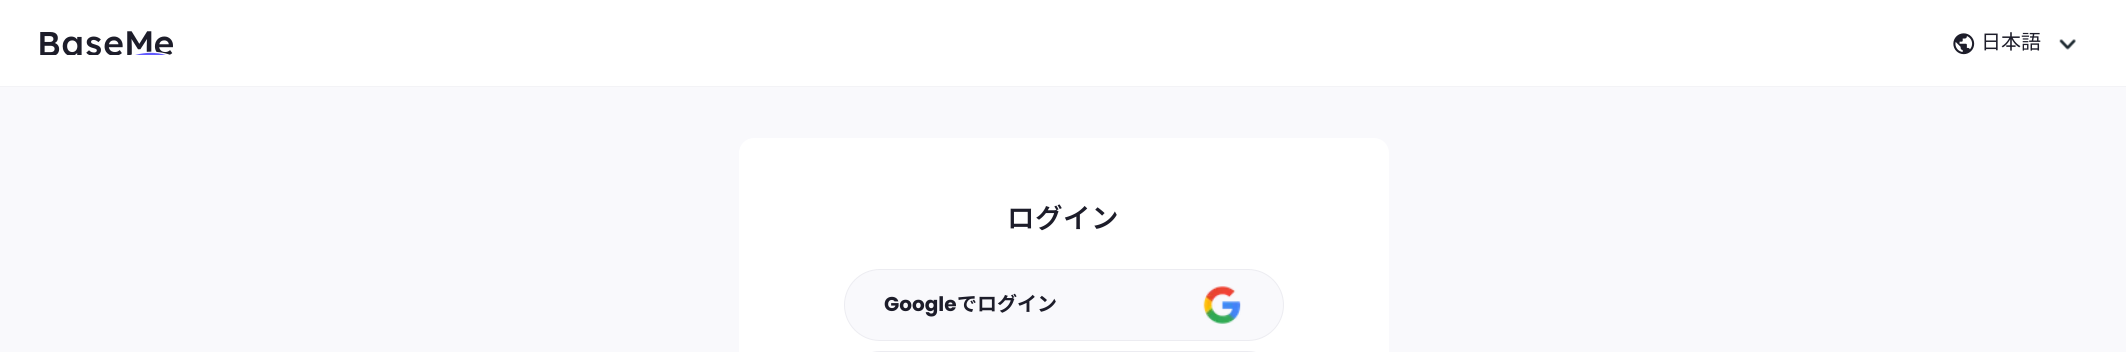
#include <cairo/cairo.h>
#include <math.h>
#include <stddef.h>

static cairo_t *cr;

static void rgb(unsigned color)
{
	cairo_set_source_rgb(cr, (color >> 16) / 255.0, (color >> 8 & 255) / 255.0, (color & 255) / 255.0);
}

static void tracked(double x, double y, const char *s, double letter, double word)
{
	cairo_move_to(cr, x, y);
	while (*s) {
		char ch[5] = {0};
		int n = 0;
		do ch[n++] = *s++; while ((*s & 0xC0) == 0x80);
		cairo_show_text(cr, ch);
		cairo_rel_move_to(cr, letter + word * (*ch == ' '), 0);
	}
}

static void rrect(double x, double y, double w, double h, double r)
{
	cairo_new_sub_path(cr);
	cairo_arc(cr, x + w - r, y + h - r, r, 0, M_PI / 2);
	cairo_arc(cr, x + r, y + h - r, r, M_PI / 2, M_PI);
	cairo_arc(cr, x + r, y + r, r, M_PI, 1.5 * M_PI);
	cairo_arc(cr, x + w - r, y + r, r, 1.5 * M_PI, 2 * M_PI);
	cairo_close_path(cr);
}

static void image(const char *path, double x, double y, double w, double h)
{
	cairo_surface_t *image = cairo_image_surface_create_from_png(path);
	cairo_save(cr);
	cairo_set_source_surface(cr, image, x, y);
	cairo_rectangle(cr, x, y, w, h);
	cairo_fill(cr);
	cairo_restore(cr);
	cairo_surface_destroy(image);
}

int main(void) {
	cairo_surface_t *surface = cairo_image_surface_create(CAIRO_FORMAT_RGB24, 2126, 352);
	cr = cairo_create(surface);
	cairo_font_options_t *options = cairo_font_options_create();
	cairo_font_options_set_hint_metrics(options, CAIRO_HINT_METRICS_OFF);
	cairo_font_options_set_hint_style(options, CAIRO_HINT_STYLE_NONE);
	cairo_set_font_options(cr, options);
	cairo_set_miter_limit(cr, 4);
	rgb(0xf9f9fc);
	cairo_paint(cr);
	rgb(0xffffff);
	cairo_rectangle(cr, 0, 0, 2126, 86);
	cairo_fill(cr);
	rgb(0xf3f3f6);
	cairo_rectangle(cr, 0, 86, 2126, 1);
	cairo_fill(cr);
	image("img/1.png", 40, 31, 133, 24);
	image("img/2.png", 1953, 33, 22, 22);
	image("img/3.png", 2059, 39, 17, 11);
	rgb(0xffffff);
	rrect(739, 138, 650, 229, 15);
	cairo_fill(cr);
	rgb(0xf9f9fc);
	rrect(844.5, 269.5, 439, 71, 35.5);
	cairo_fill_preserve(cr);
	rgb(0xececf1);
	cairo_set_line_width(cr, 1);
	cairo_stroke(cr);
	image("img/4.png", 1203, 286, 38, 38);
	rrect(844.5, 351.5, 439, 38, 36);
	cairo_stroke(cr);
	cairo_select_font_face(cr, "Noto Sans JP", CAIRO_FONT_SLANT_NORMAL, CAIRO_FONT_WEIGHT_NORMAL);
	cairo_set_font_size(cr, 20);
	rgb(0x1d1d2a);
	cairo_move_to(cr, 1981, 49);
	cairo_show_text(cr, "日本語");
	cairo_select_font_face(cr, "Noto Sans JP SemiBold", CAIRO_FONT_SLANT_NORMAL, CAIRO_FONT_WEIGHT_NORMAL);
	cairo_set_font_size(cr, 27.5);
	tracked(1007, 228, "ログイン", 0.5, 0);
	cairo_select_font_face(cr, "Poppins", CAIRO_FONT_SLANT_NORMAL, CAIRO_FONT_WEIGHT_BOLD);
	cairo_set_font_size(cr, 20);
	cairo_move_to(cr, 884, 311);
	cairo_show_text(cr, "Google");
	cairo_select_font_face(cr, "Noto Sans JP", CAIRO_FONT_SLANT_NORMAL, CAIRO_FONT_WEIGHT_BOLD);
	cairo_move_to(cr, 957, 311);
	cairo_show_text(cr, "でログイン");
	cairo_surface_write_to_png(surface, "page.png");
	cairo_font_options_destroy(options);
	cairo_destroy(cr);
	cairo_surface_destroy(surface);
	return 0;
}
